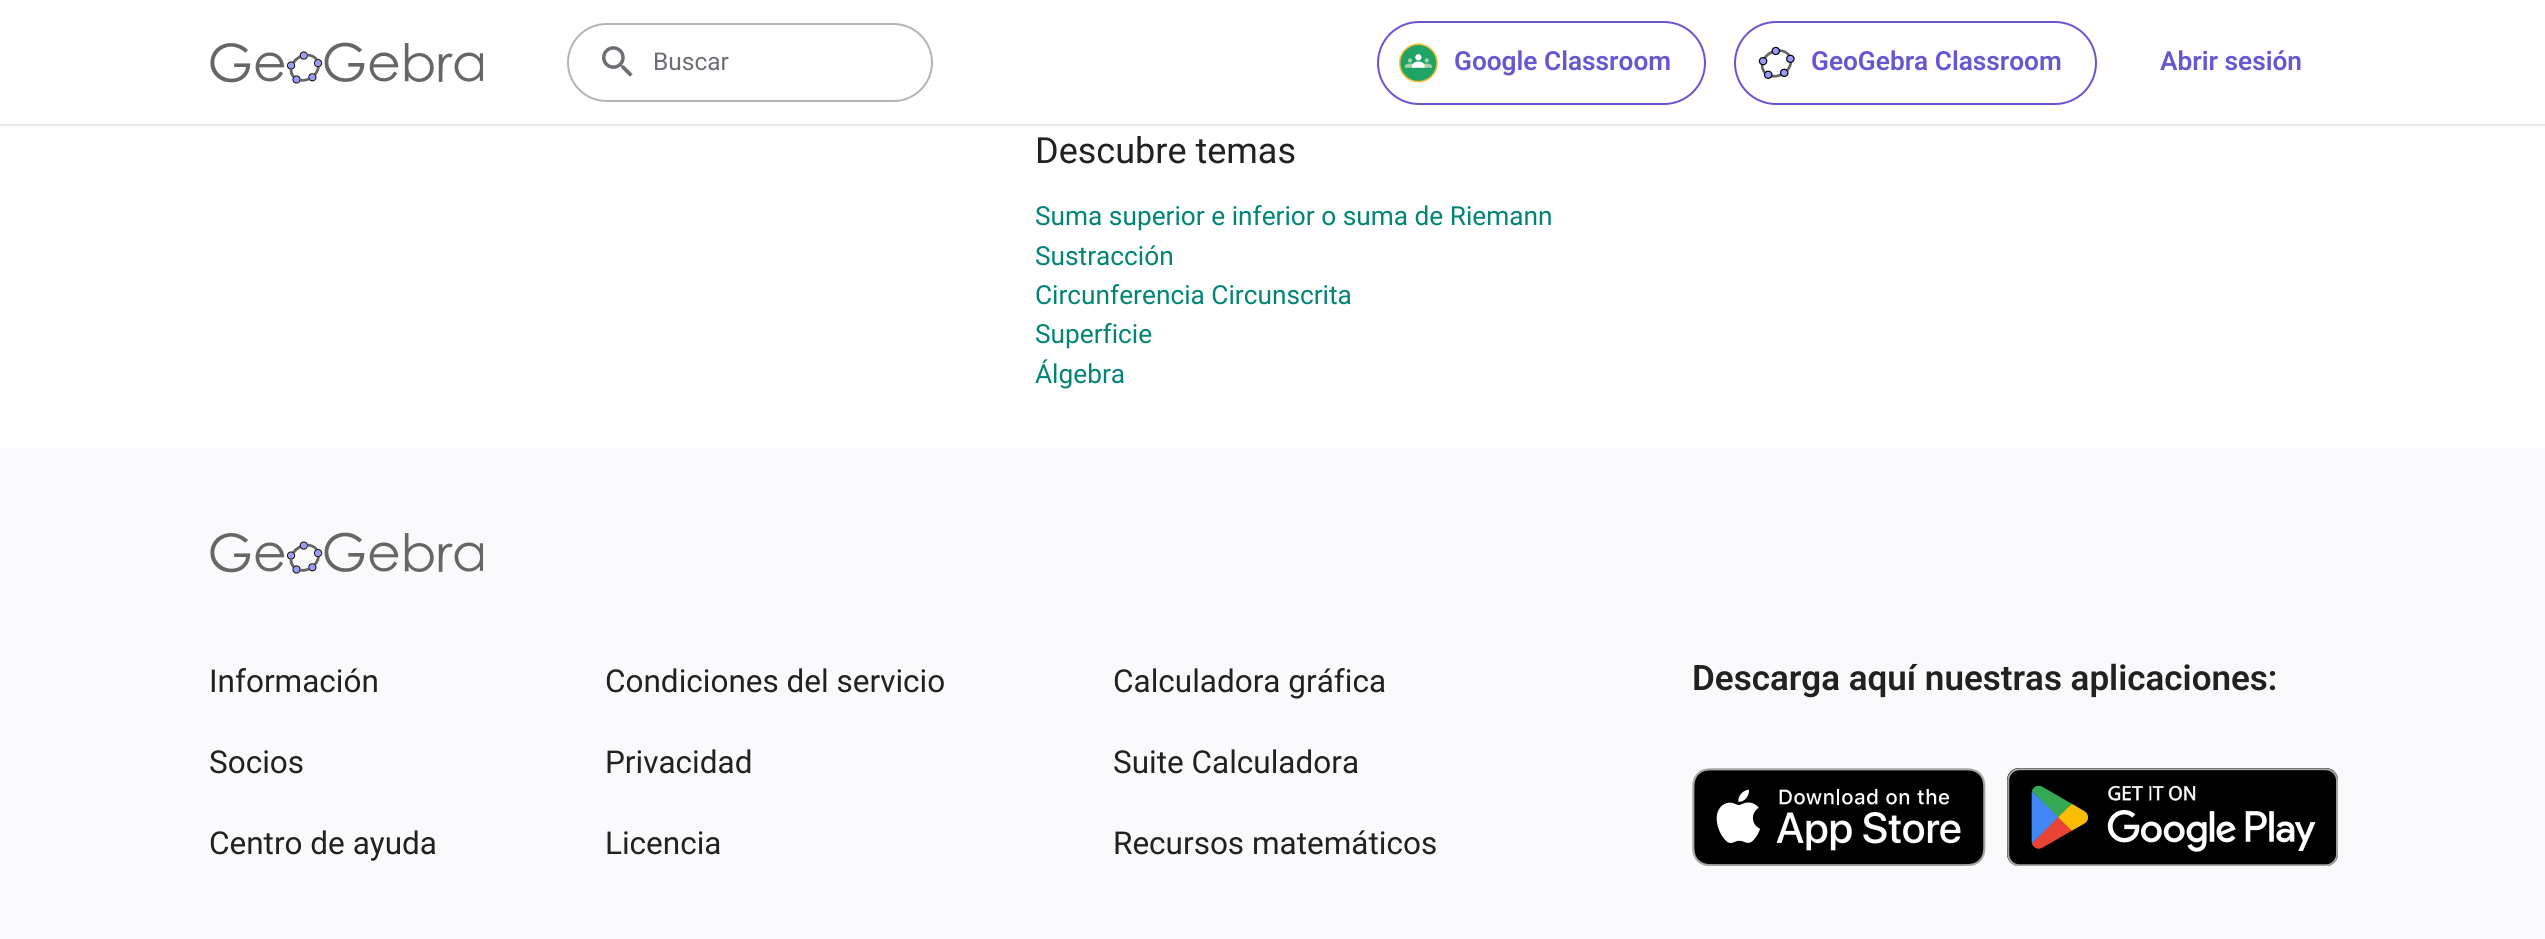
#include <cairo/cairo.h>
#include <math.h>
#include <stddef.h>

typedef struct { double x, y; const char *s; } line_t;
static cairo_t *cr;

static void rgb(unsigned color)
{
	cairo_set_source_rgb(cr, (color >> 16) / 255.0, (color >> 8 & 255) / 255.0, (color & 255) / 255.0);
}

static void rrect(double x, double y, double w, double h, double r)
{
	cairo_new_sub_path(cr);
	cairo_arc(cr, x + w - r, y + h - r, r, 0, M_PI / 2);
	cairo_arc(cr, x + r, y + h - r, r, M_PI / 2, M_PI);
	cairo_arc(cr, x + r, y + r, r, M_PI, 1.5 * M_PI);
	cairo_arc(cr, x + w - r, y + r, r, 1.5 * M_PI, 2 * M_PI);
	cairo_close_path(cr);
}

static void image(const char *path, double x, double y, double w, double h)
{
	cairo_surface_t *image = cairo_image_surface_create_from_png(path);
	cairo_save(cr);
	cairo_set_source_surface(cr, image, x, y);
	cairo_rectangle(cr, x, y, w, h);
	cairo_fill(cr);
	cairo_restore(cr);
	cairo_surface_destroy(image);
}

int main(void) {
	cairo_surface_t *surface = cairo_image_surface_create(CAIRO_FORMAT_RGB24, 2545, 939);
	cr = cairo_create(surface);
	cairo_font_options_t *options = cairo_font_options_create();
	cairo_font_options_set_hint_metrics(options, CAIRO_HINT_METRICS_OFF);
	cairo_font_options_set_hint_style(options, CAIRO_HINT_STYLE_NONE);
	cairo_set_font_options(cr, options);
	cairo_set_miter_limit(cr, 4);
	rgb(0xffffff);
	cairo_paint(cr);
	rgb(0xe6e6eb);
	cairo_rectangle(cr, 0, 124, 2545, 2);
	cairo_fill(cr);
	image("img/1.png", 210, 42, 273, 42);
	rrect(568, 24, 364, 77, 38.5);
	rgb(0xb4b3ba);
	cairo_stroke(cr);
	image("img/2.png", 602, 46, 31, 31);
	rrect(1378, 22, 327, 82, 41);
	rgb(0x6557d2);
	cairo_stroke(cr);
	image("img/3.png", 1398, 43, 40, 40);
	rrect(1735, 22, 361, 82, 41);
	cairo_stroke(cr);
	image("img/4.png", 1758, 46, 37, 33);
	rgb(0xfafafc);
	cairo_rectangle(cr, 0, 448, 2545, 491);
	cairo_fill(cr);
	image("img/5.png", 210, 532, 273, 42);
	image("img/6.png", 1692, 768, 294, 98);
	image("img/7.png", 2007, 768, 331, 98);
	cairo_select_font_face(cr, "Roboto", CAIRO_FONT_SLANT_NORMAL, CAIRO_FONT_WEIGHT_NORMAL);
	cairo_set_font_size(cr, 24.5);
	rgb(0x6e6d73);
	cairo_move_to(cr, 653, 70);
	cairo_show_text(cr, "Buscar");
	cairo_select_font_face(cr, "Roboto SemiBold", CAIRO_FONT_SLANT_NORMAL, CAIRO_FONT_WEIGHT_NORMAL);
	cairo_set_font_size(cr, 26.25);
	rgb(0x6557d2);
	{
		static const line_t items[] = {
			{1454, 70, "Google Classroom"},
			{1811, 70, "GeoGebra Classroom"},
			{2160, 70, "Abrir sesión"},
		};
		for (size_t i = 0; i < sizeof items / sizeof *items; i++) {
			cairo_move_to(cr, items[i].x, items[i].y);
			cairo_show_text(cr, items[i].s);
		}
	}
	cairo_select_font_face(cr, "Roboto", CAIRO_FONT_SLANT_NORMAL, CAIRO_FONT_WEIGHT_NORMAL);
	cairo_set_font_size(cr, 36);
	rgb(0x212121);
	cairo_move_to(cr, 1035, 163);
	cairo_show_text(cr, "Descubre temas");
	cairo_set_font_size(cr, 26.25);
	rgb(0x008475);
	{
		static const line_t items[] = {
			{1035, 225, "Suma superior e inferior o suma de Riemann"},
			{1035, 265, "Sustracción"},
			{1035, 304, "Circunferencia Circunscrita"},
			{1035, 343, "Superficie"},
			{1035, 383, "Álgebra"},
		};
		for (size_t i = 0; i < sizeof items / sizeof *items; i++) {
			cairo_move_to(cr, items[i].x, items[i].y);
			cairo_show_text(cr, items[i].s);
		}
	}
	cairo_set_font_size(cr, 31.5);
	rgb(0x212121);
	{
		static const line_t items[] = {
			{209, 692, "Información"},
			{209, 773, "Socios"},
			{209, 854, "Centro de ayuda"},
			{605, 692, "Condiciones del servicio"},
			{605, 773, "Privacidad"},
			{605, 854, "Licencia"},
			{1113, 692, "Calculadora gráfica"},
			{1113, 773, "Suite Calculadora"},
			{1113, 854, "Recursos matemáticos"},
		};
		for (size_t i = 0; i < sizeof items / sizeof *items; i++) {
			cairo_move_to(cr, items[i].x, items[i].y);
			cairo_show_text(cr, items[i].s);
		}
	}
	cairo_select_font_face(cr, "Roboto SemiBold", CAIRO_FONT_SLANT_NORMAL, CAIRO_FONT_WEIGHT_NORMAL);
	cairo_set_font_size(cr, 35);
	cairo_move_to(cr, 1692, 690);
	cairo_show_text(cr, "Descarga aquí nuestras aplicaciones:");
	cairo_surface_write_to_png(surface, "page.png");
	cairo_font_options_destroy(options);
	cairo_destroy(cr);
	cairo_surface_destroy(surface);
	return 0;
}
